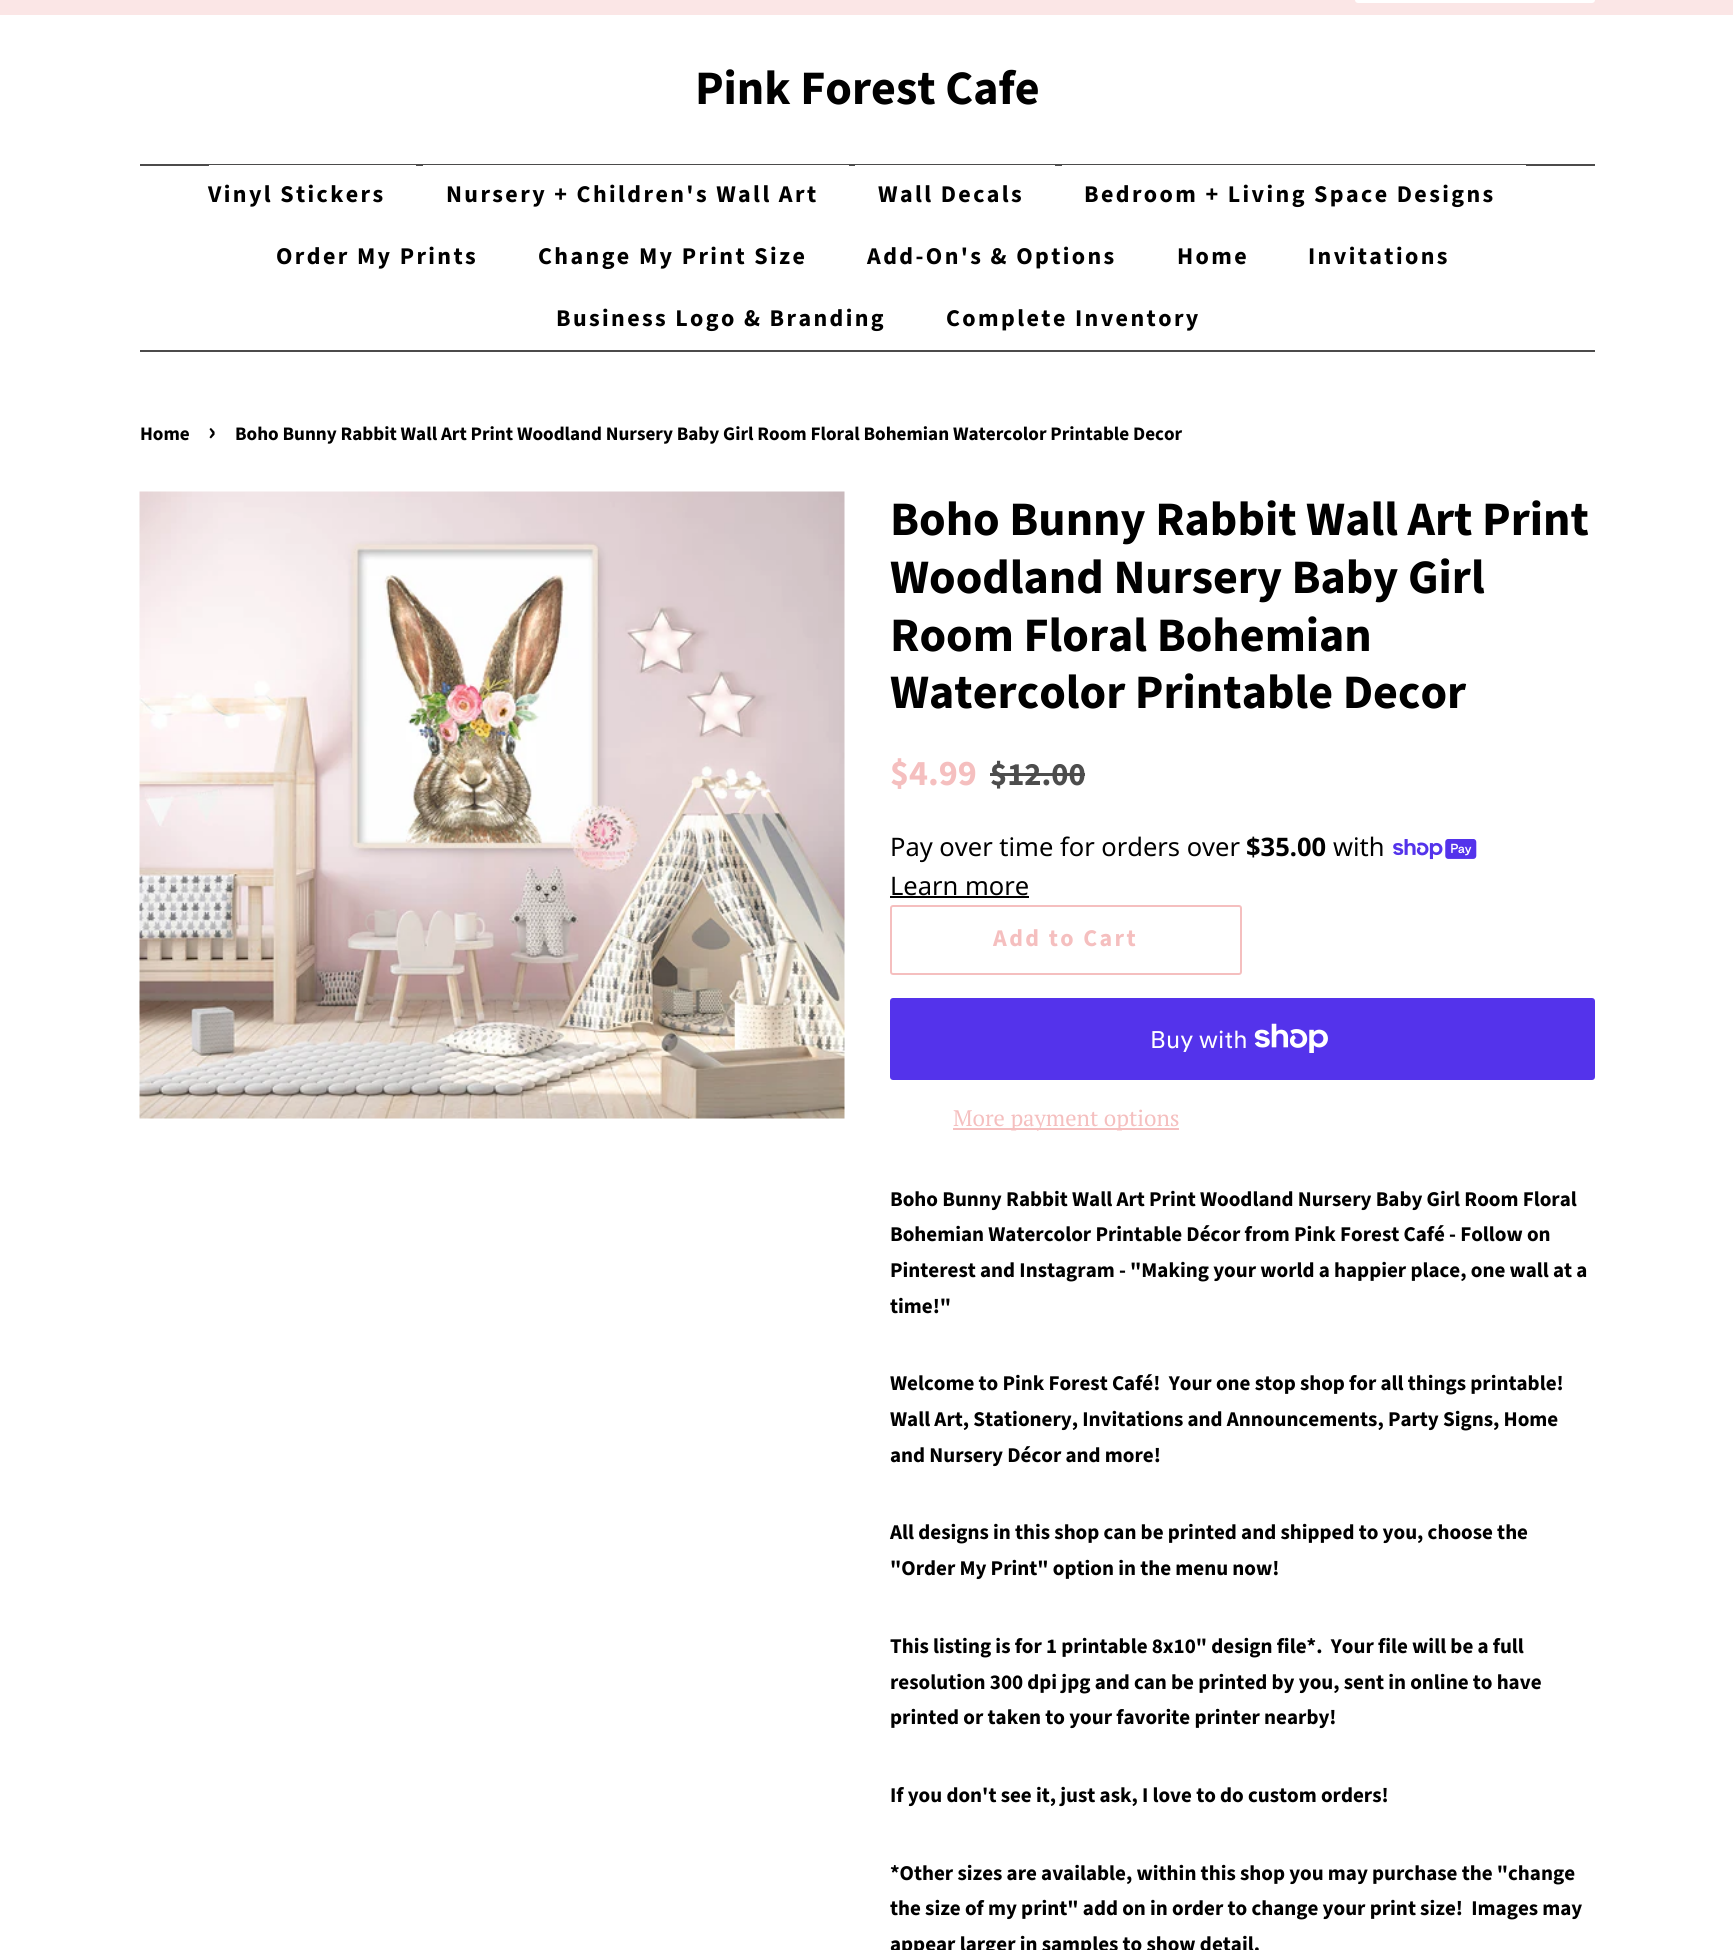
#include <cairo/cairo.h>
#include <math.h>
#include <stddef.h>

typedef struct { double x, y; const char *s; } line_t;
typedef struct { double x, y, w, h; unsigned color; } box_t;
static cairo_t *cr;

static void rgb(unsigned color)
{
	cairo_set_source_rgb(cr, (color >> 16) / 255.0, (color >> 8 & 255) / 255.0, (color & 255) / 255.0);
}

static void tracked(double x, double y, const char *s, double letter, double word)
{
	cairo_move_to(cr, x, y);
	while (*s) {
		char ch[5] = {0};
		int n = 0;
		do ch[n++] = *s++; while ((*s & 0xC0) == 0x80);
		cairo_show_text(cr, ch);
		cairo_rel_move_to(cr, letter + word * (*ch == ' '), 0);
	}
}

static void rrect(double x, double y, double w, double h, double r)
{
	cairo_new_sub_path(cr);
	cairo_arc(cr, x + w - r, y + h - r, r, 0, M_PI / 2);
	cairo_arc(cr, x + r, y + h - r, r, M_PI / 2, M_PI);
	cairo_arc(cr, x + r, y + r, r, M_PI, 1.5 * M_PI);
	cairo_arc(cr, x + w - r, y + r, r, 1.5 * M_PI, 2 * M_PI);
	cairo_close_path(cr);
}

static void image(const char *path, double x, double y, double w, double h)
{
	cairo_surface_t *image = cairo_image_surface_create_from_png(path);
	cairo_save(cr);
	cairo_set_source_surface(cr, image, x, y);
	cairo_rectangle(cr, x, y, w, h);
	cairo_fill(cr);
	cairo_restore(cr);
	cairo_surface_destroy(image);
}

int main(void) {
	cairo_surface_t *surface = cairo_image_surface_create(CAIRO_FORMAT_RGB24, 1733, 1950);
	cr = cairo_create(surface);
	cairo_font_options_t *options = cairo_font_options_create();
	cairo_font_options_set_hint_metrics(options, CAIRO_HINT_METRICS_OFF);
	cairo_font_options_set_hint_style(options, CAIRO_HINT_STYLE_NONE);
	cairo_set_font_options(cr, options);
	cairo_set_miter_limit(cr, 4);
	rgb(0xffffff);
	cairo_paint(cr);
	rgb(0xfbe6e6);
	cairo_rectangle(cr, 0, 0, 1733, 15);
	cairo_fill(cr);
	rgb(0xffffff);
	rrect(1355, -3, 240, 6, 3);
	cairo_fill(cr);
	{
		static const box_t items[] = {
			{140, 164, 1455, 2, 0x4c4b4b},
			{140, 350, 1455, 2, 0x4c4b4b},
			{209, 165, 207, 1, 0xffffff},
			{423, 165, 426, 1, 0xffffff},
			{855, 165, 200, 1, 0xffffff},
			{1062, 165, 464, 1, 0xffffff},
		};
		for (size_t i = 0; i < sizeof items / sizeof *items; i++) {
			rgb(items[i].color);
			cairo_rectangle(cr, items[i].x, items[i].y, items[i].w, items[i].h);
			cairo_fill(cr);
		}
	}
	image("img/1.png", 139, 491, 706, 628);
	rgb(0x4d4d4d);
	cairo_rectangle(cr, 990, 773, 95, 3);
	cairo_fill(cr);
	image("img/2.png", 1393, 839, 84, 21);
	rgb(0x000000);
	cairo_rectangle(cr, 890, 896, 139, 2);
	cairo_fill(cr);
	rrect(891, 906, 350, 68, 2);
	rgb(0xf5bfbf);
	cairo_stroke(cr);
	rgb(0x5433eb);
	rrect(890, 998, 705, 82, 3);
	cairo_fill(cr);
	image("img/3.png", 1254, 1023, 74, 30);
	rgb(0xf5bfbf);
	cairo_rectangle(cr, 953, 1128, 226, 2);
	cairo_fill(cr);
	cairo_select_font_face(cr, "Source Sans Pro", CAIRO_FONT_SLANT_NORMAL, CAIRO_FONT_WEIGHT_BOLD);
	cairo_set_font_size(cr, 48);
	rgb(0x000000);
	cairo_move_to(cr, 695, 104);
	cairo_show_text(cr, "Pink Forest Cafe");
	cairo_set_font_size(cr, 24);
	{
		static const line_t items[] = {
			{208, 202, "Vinyl Stickers"},
			{446, 202, "Nursery + Children's Wall Art"},
			{878, 202, "Wall Decals"},
			{1084, 202, "Bedroom + Living Space Designs"},
			{276, 264, "Order My Prints"},
			{538, 264, "Change My Print Size"},
			{867, 264, "Add-On's & Options"},
			{1177, 264, "Home"},
			{1308, 264, "Invitations"},
			{556, 326, "Business Logo & Branding"},
			{946, 326, "Complete Inventory"},
		};
		for (size_t i = 0; i < sizeof items / sizeof *items; i++) {
			tracked(items[i].x, items[i].y, items[i].s, 2.4, 0);
		}
	}
	cairo_set_font_size(cr, 19.1);
	cairo_move_to(cr, 140, 440);
	cairo_show_text(cr, "Home");
	cairo_set_font_size(cr, 27);
	cairo_move_to(cr, 208, 440);
	cairo_show_text(cr, "›");
	cairo_set_font_size(cr, 19.1);
	cairo_move_to(cr, 235, 440);
	cairo_show_text(cr, "Boho Bunny Rabbit Wall Art Print Woodland Nursery Baby Girl Room Floral Bohemian Watercolor Printable Decor");
	cairo_set_font_size(cr, 48);
	{
		static const line_t items[] = {
			{890, 535, "Boho Bunny Rabbit Wall Art Print"},
			{890, 593, "Woodland Nursery Baby Girl"},
			{890, 651, "Room Floral Bohemian"},
			{890, 708, "Watercolor Printable Decor"},
		};
		for (size_t i = 0; i < sizeof items / sizeof *items; i++) {
			cairo_move_to(cr, items[i].x, items[i].y);
			cairo_show_text(cr, items[i].s);
		}
	}
	cairo_set_font_size(cr, 36);
	rgb(0xf5bfbf);
	cairo_move_to(cr, 890, 785);
	cairo_show_text(cr, "$4.99");
	cairo_set_font_size(cr, 32.5);
	rgb(0x4d4d4d);
	cairo_move_to(cr, 990, 785);
	cairo_show_text(cr, "$12.00");
	cairo_select_font_face(cr, "Noto Sans", CAIRO_FONT_SLANT_NORMAL, CAIRO_FONT_WEIGHT_NORMAL);
	cairo_set_font_size(cr, 25.5);
	rgb(0x000000);
	cairo_move_to(cr, 890, 856);
	cairo_show_text(cr, "Pay over time for orders over");
	cairo_select_font_face(cr, "Noto Sans", CAIRO_FONT_SLANT_NORMAL, CAIRO_FONT_WEIGHT_BOLD);
	cairo_move_to(cr, 1246, 856);
	cairo_show_text(cr, "$35.00");
	cairo_select_font_face(cr, "Noto Sans", CAIRO_FONT_SLANT_NORMAL, CAIRO_FONT_WEIGHT_NORMAL);
	cairo_move_to(cr, 1333, 856);
	cairo_show_text(cr, "with");
	cairo_move_to(cr, 890, 895);
	cairo_show_text(cr, "Learn more");
	cairo_select_font_face(cr, "Source Sans Pro", CAIRO_FONT_SLANT_NORMAL, CAIRO_FONT_WEIGHT_BOLD);
	cairo_set_font_size(cr, 24);
	rgb(0xf5bfbf);
	tracked(993, 946, "Add to Cart", 2.4, 0);
	cairo_select_font_face(cr, "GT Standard", CAIRO_FONT_SLANT_NORMAL, CAIRO_FONT_WEIGHT_NORMAL);
	rgb(0xffffff);
	cairo_move_to(cr, 1150, 1048);
	cairo_show_text(cr, "Buy with");
	cairo_select_font_face(cr, "PT Serif", CAIRO_FONT_SLANT_NORMAL, CAIRO_FONT_WEIGHT_NORMAL);
	cairo_set_font_size(cr, 22.5);
	rgb(0xf5bfbf);
	cairo_move_to(cr, 953, 1126);
	cairo_show_text(cr, "More payment options");
	cairo_select_font_face(cr, "Source Sans Pro", CAIRO_FONT_SLANT_NORMAL, CAIRO_FONT_WEIGHT_BOLD);
	cairo_set_font_size(cr, 21);
	rgb(0x000000);
	{
		static const line_t items[] = {
			{890, 1206, "Boho Bunny Rabbit Wall Art Print Woodland Nursery Baby Girl Room Floral"},
			{890, 1241, "Bohemian Watercolor Printable Décor from Pink Forest Café - Follow on"},
			{890, 1277, "Pinterest and Instagram - \"Making your world a happier place, one wall at a"},
			{890, 1313, "time!\""},
			{890, 1390, "Welcome to Pink Forest Café!  Your one stop shop for all things printable!"},
			{890, 1426, "Wall Art, Stationery, Invitations and Announcements, Party Signs, Home"},
			{890, 1462, "and Nursery Décor and more!"},
			{890, 1539, "All designs in this shop can be printed and shipped to you, choose the"},
			{890, 1575, "\"Order My Print\" option in the menu now!"},
			{890, 1653, "This listing is for 1 printable 8x10\" design file*.  Your file will be a full"},
			{890, 1689, "resolution 300 dpi jpg and can be printed by you, sent in online to have"},
			{890, 1724, "printed or taken to your favorite printer nearby!"},
			{890, 1802, "If you don't see it, just ask, I love to do custom orders!"},
			{890, 1880, "*Other sizes are available, within this shop you may purchase the \"change"},
			{890, 1915, "the size of my print\" add on in order to change your print size!  Images may"},
			{890, 1951, "appear larger in samples to show detail."},
		};
		for (size_t i = 0; i < sizeof items / sizeof *items; i++) {
			cairo_move_to(cr, items[i].x, items[i].y);
			cairo_show_text(cr, items[i].s);
		}
	}
	cairo_surface_write_to_png(surface, "page.png");
	cairo_font_options_destroy(options);
	cairo_destroy(cr);
	cairo_surface_destroy(surface);
	return 0;
}
